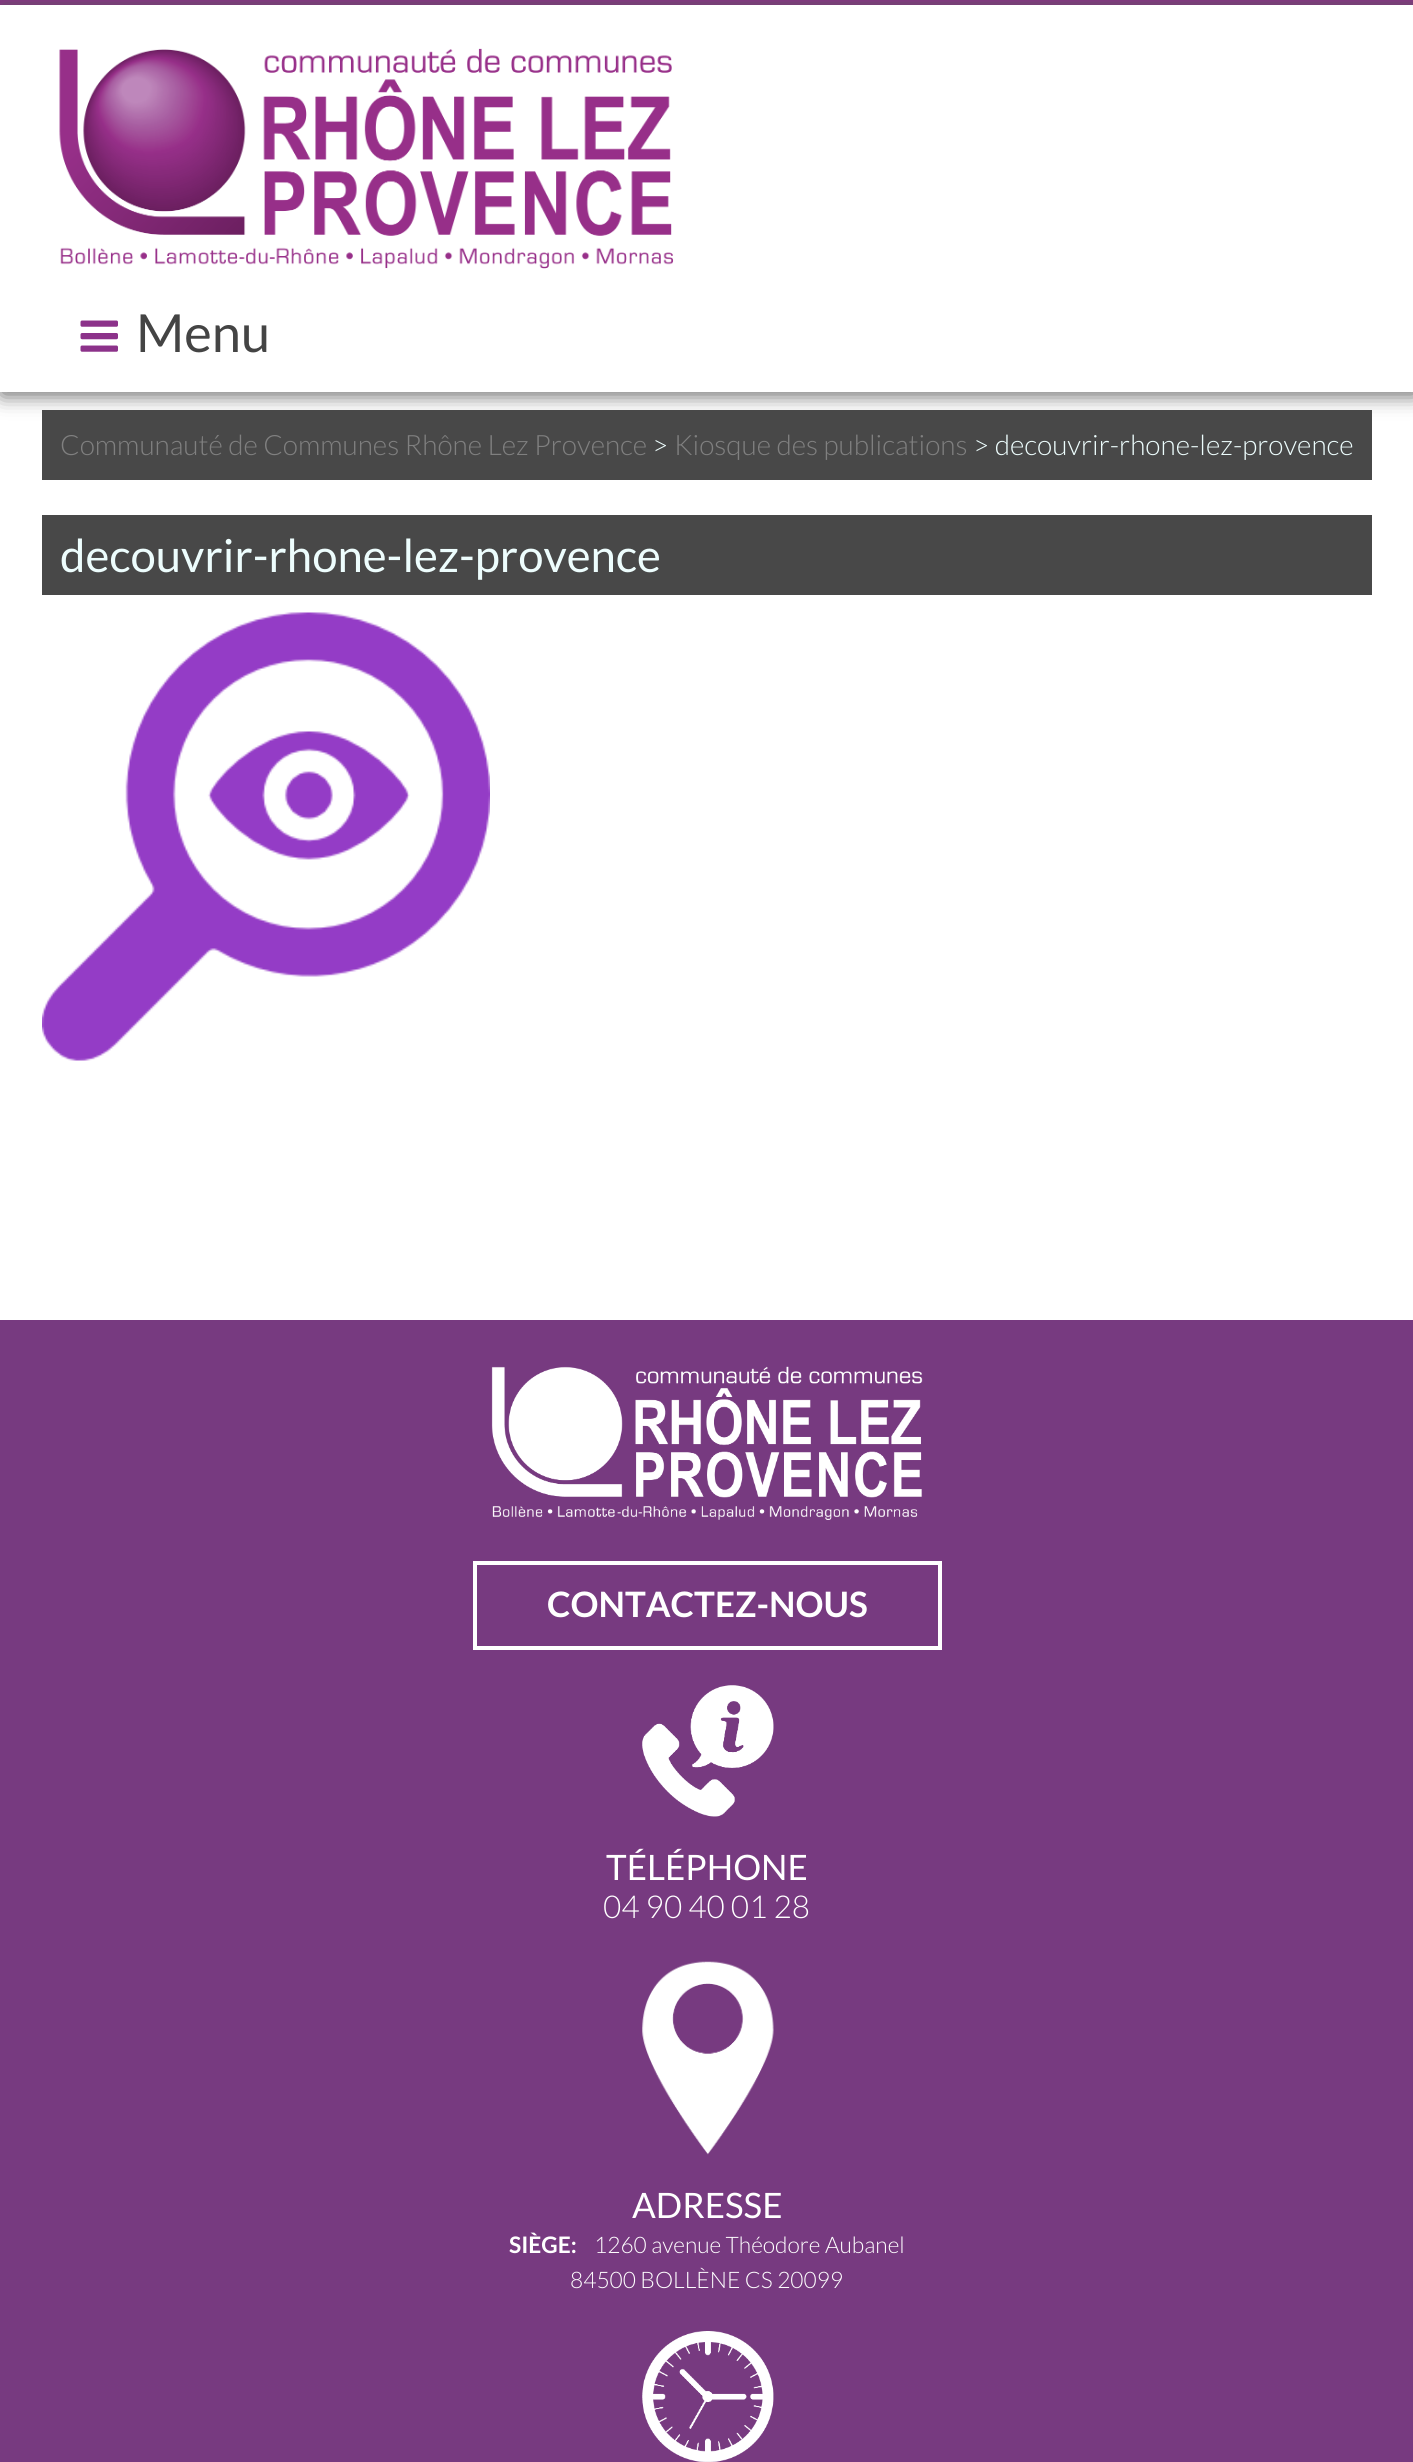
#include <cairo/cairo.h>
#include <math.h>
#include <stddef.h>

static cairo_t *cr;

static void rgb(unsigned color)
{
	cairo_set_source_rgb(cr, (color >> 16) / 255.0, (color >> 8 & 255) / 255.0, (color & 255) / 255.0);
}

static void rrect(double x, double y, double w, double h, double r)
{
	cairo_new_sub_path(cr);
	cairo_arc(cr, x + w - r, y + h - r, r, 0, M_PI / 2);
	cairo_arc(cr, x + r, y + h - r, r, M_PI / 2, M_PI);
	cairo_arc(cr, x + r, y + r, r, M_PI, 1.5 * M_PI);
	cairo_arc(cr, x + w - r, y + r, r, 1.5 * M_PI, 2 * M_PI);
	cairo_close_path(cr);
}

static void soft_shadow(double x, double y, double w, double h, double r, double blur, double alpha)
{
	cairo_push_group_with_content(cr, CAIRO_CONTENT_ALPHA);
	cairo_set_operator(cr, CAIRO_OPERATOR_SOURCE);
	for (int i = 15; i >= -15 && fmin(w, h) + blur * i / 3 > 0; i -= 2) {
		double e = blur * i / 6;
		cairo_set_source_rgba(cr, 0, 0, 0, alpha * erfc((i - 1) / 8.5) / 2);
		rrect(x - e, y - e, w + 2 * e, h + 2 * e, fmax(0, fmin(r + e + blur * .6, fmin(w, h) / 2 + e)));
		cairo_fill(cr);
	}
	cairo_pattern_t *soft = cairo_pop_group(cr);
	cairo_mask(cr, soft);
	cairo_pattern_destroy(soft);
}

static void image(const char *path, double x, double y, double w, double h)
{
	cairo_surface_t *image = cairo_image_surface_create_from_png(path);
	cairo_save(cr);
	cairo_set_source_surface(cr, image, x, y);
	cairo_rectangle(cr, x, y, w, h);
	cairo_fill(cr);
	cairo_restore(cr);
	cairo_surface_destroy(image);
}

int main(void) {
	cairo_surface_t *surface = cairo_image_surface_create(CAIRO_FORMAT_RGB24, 1413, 2462);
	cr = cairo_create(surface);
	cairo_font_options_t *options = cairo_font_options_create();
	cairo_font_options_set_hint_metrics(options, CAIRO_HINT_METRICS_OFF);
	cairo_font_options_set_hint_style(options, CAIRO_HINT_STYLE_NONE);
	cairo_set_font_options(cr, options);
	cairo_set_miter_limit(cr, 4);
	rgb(0xffffff);
	cairo_paint(cr);
	rgb(0x8c328a);
	cairo_rectangle(cr, 0, 0, 1413, 5);
	cairo_fill(cr);
	rgb(0x555555);
	soft_shadow(2, 7, 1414, 387, 0, 10.5, 1);
	rgb(0xffffff);
	cairo_rectangle(cr, 0, 5, 1413, 387);
	cairo_fill(cr);
	image("img/1.png", 59, 48, 615, 221);
	image("img/2.png", 80, 320, 38, 32);
	rgb(0x484848);
	cairo_rectangle(cr, 42, 410, 1330, 70);
	cairo_fill(cr);
	cairo_rectangle(cr, 42, 515, 1330, 80);
	cairo_fill(cr);
	image("img/3.png", 42, 612, 448, 449);
	rgb(0x773a80);
	cairo_rectangle(cr, 0, 1320, 1413, 1142);
	cairo_fill(cr);
	image("img/4.png", 491, 1366, 432, 154);
	cairo_rectangle(cr, 475, 1563, 465, 85);
	rgb(0xffffff);
	cairo_set_line_width(cr, 4);
	cairo_stroke(cr);
	image("img/5.png", 642, 1685, 132, 132);
	image("img/6.png", 642, 1961, 132, 194);
	image("img/7.png", 642, 2331, 132, 131);
	cairo_select_font_face(cr, "Lato", CAIRO_FONT_SLANT_NORMAL, CAIRO_FONT_WEIGHT_NORMAL);
	cairo_set_font_size(cr, 52.5);
	rgb(0x444444);
	cairo_move_to(cr, 136, 352);
	cairo_show_text(cr, "Menu");
	cairo_select_font_face(cr, "Lato Light", CAIRO_FONT_SLANT_NORMAL, CAIRO_FONT_WEIGHT_NORMAL);
	cairo_set_font_size(cr, 28);
	rgb(0x808080);
	cairo_move_to(cr, 60, 455);
	cairo_show_text(cr, "Communauté de Communes Rhône Lez Provence");
	rgb(0xedfdfd);
	cairo_move_to(cr, 652, 455);
	cairo_show_text(cr, ">");
	rgb(0x808080);
	cairo_move_to(cr, 674, 455);
	cairo_show_text(cr, "Kiosque des publications");
	rgb(0xedfdfd);
	cairo_move_to(cr, 973, 455);
	cairo_show_text(cr, "> decouvrir-rhone-lez-provence");
	cairo_select_font_face(cr, "Lato", CAIRO_FONT_SLANT_NORMAL, CAIRO_FONT_WEIGHT_NORMAL);
	cairo_set_font_size(cr, 45.5);
	cairo_move_to(cr, 60, 572);
	cairo_show_text(cr, "decouvrir-rhone-lez-provence");
	cairo_select_font_face(cr, "Lato", CAIRO_FONT_SLANT_NORMAL, CAIRO_FONT_WEIGHT_BOLD);
	cairo_set_font_size(cr, 35);
	rgb(0xffffff);
	cairo_move_to(cr, 547, 1617);
	cairo_show_text(cr, "CONTACTEZ-NOUS");
	cairo_select_font_face(cr, "Lato", CAIRO_FONT_SLANT_NORMAL, CAIRO_FONT_WEIGHT_NORMAL);
	cairo_move_to(cr, 606, 1880);
	cairo_show_text(cr, "TÉLÉPHONE");
	cairo_select_font_face(cr, "Lato Light", CAIRO_FONT_SLANT_NORMAL, CAIRO_FONT_WEIGHT_NORMAL);
	cairo_set_font_size(cr, 31.5);
	cairo_move_to(cr, 603, 1918);
	cairo_show_text(cr, "04 90 40 01 28");
	cairo_select_font_face(cr, "Lato", CAIRO_FONT_SLANT_NORMAL, CAIRO_FONT_WEIGHT_NORMAL);
	cairo_set_font_size(cr, 35);
	cairo_move_to(cr, 632, 2218);
	cairo_show_text(cr, "ADRESSE");
	cairo_select_font_face(cr, "Lato", CAIRO_FONT_SLANT_NORMAL, CAIRO_FONT_WEIGHT_BOLD);
	cairo_set_font_size(cr, 22.75);
	cairo_move_to(cr, 509, 2253);
	cairo_show_text(cr, "SIÈGE:");
	cairo_select_font_face(cr, "Lato Light", CAIRO_FONT_SLANT_NORMAL, CAIRO_FONT_WEIGHT_NORMAL);
	cairo_move_to(cr, 594, 2253);
	cairo_show_text(cr, "1260 avenue Théodore Aubanel");
	cairo_move_to(cr, 570, 2288);
	cairo_show_text(cr, "84500 BOLLÈNE CS 20099");
	cairo_surface_write_to_png(surface, "page.png");
	cairo_font_options_destroy(options);
	cairo_destroy(cr);
	cairo_surface_destroy(surface);
	return 0;
}
